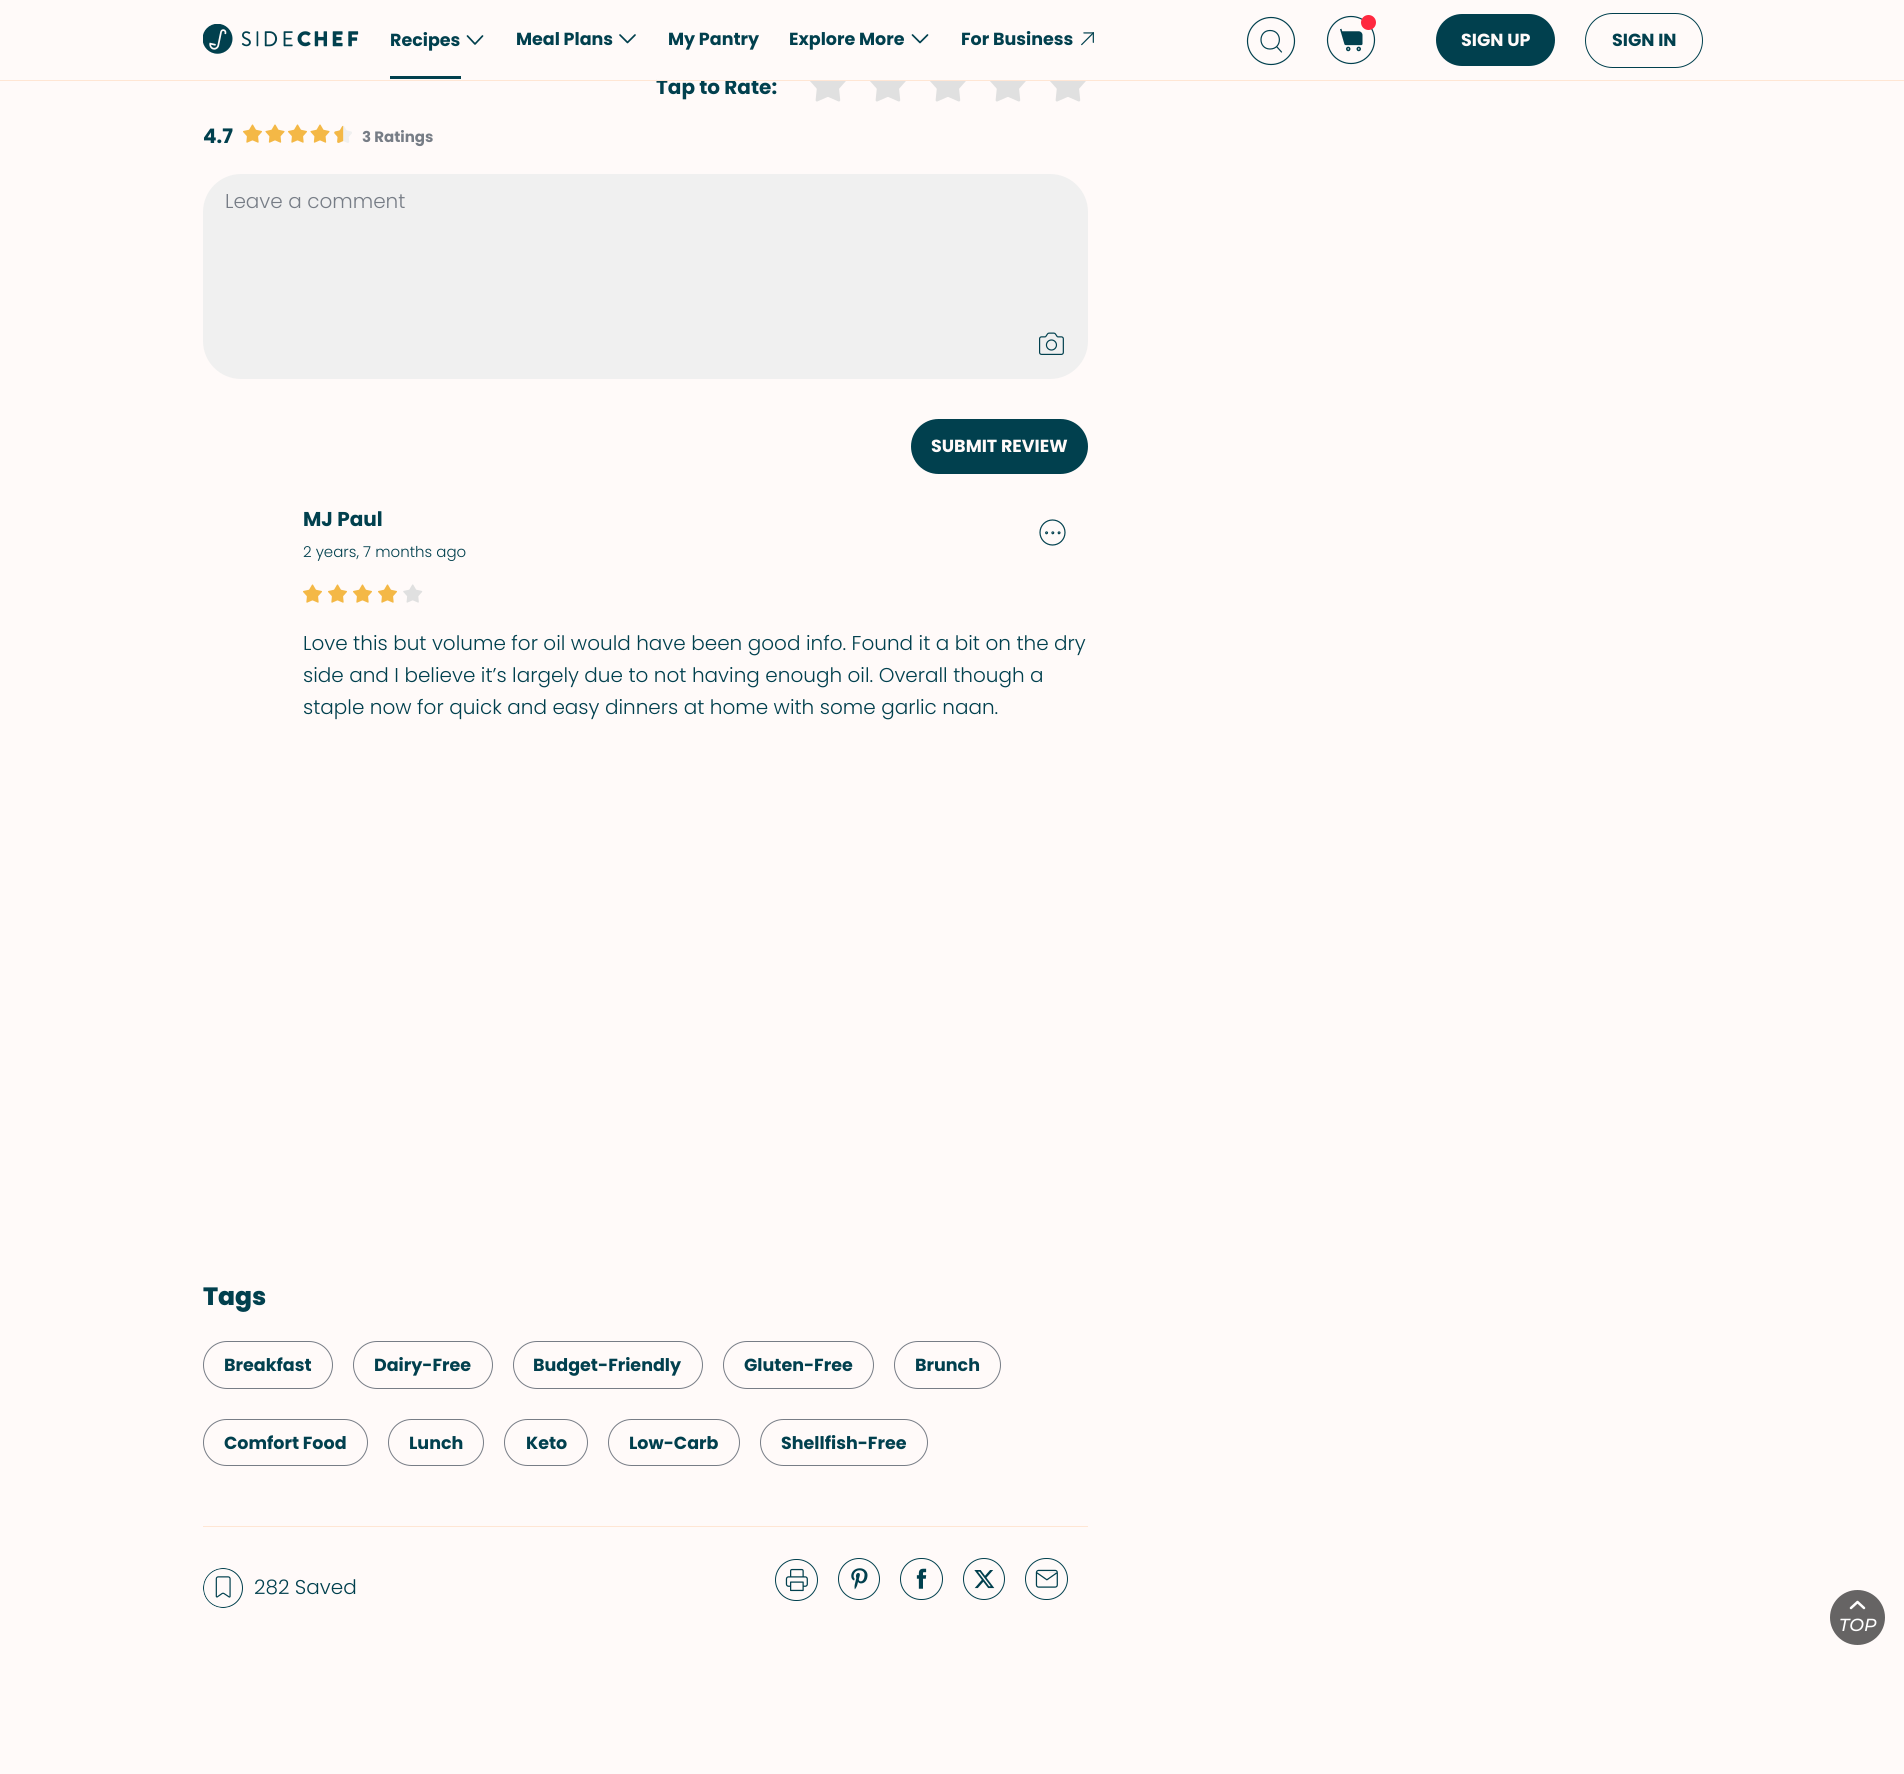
#include <cairo/cairo.h>
#include <math.h>
#include <stddef.h>

typedef struct { double x, y; const char *s; } line_t;
static cairo_t *cr;

static void rgb(unsigned color)
{
	cairo_set_source_rgb(cr, (color >> 16) / 255.0, (color >> 8 & 255) / 255.0, (color & 255) / 255.0);
}

static void rrect(double x, double y, double w, double h, double r)
{
	cairo_new_sub_path(cr);
	cairo_arc(cr, x + w - r, y + h - r, r, 0, M_PI / 2);
	cairo_arc(cr, x + r, y + h - r, r, M_PI / 2, M_PI);
	cairo_arc(cr, x + r, y + r, r, M_PI, 1.5 * M_PI);
	cairo_arc(cr, x + w - r, y + r, r, 1.5 * M_PI, 2 * M_PI);
	cairo_close_path(cr);
}

static void image(const char *path, double x, double y, double w, double h)
{
	cairo_surface_t *image = cairo_image_surface_create_from_png(path);
	cairo_save(cr);
	cairo_set_source_surface(cr, image, x, y);
	cairo_rectangle(cr, x, y, w, h);
	cairo_fill(cr);
	cairo_restore(cr);
	cairo_surface_destroy(image);
}

int main(void) {
	cairo_surface_t *surface = cairo_image_surface_create(CAIRO_FORMAT_RGB24, 1904, 1774);
	cr = cairo_create(surface);
	cairo_font_options_t *options = cairo_font_options_create();
	cairo_font_options_set_hint_metrics(options, CAIRO_HINT_METRICS_OFF);
	cairo_font_options_set_hint_style(options, CAIRO_HINT_STYLE_NONE);
	cairo_set_font_options(cr, options);
	cairo_set_miter_limit(cr, 4);
	rgb(0xfffaf9);
	cairo_paint(cr);
	image("img/1.png", 203, 24, 156, 30);
	cairo_new_path(cr);
	cairo_move_to(cr, 467.5, 36);
	cairo_line_to(cr, 475, 44);
	cairo_line_to(cr, 482.5, 36);
	rgb(0x01404e);
	cairo_set_line_width(cr, 1.7);
	cairo_set_line_cap(cr, CAIRO_LINE_CAP_ROUND);
	cairo_set_line_join(cr, CAIRO_LINE_JOIN_ROUND);
	cairo_stroke(cr);
	cairo_rectangle(cr, 390, 76, 71, 3);
	cairo_fill(cr);
	cairo_new_path(cr);
	cairo_move_to(cr, 620, 35);
	cairo_line_to(cr, 627.5, 42.5);
	cairo_line_to(cr, 635, 35);
	cairo_stroke(cr);
	cairo_new_path(cr);
	cairo_move_to(cr, 912.5, 35);
	cairo_line_to(cr, 920, 42.5);
	cairo_line_to(cr, 927.5, 35);
	cairo_stroke(cr);
	image("img/2.png", 1081, 32, 13, 14);
	cairo_arc(cr, 1271, 41, 23.5, 0, 2 * M_PI);
	cairo_set_line_width(cr, 1.2);
	cairo_set_line_cap(cr, CAIRO_LINE_CAP_BUTT);
	cairo_set_line_join(cr, CAIRO_LINE_JOIN_MITER);
	cairo_stroke(cr);
	cairo_new_path(cr);
	cairo_move_to(cr, 1270, 49);
	cairo_curve_to(cr, 1282.5, 49, 1282.5, 30.5, 1270, 30.5);
	cairo_curve_to(cr, 1258, 30.5, 1258, 49, 1270, 49);
	cairo_close_path(cr);
	cairo_move_to(cr, 1281.5, 52);
	cairo_line_to(cr, 1277, 47);
	cairo_set_line_cap(cr, CAIRO_LINE_CAP_ROUND);
	cairo_set_line_join(cr, CAIRO_LINE_JOIN_ROUND);
	cairo_stroke(cr);
	image("img/3.png", 1326, 15, 50, 50);
	rgb(0xff283f);
	cairo_arc(cr, 1368.5, 22.5, 7.5, 0, 2 * M_PI);
	cairo_fill(cr);
	rgb(0x01404e);
	rrect(1436, 14, 119, 52, 26);
	cairo_fill(cr);
	rrect(1585.5, 13.5, 117, 54, 27);
	cairo_set_line_width(cr, 1);
	cairo_set_line_cap(cr, CAIRO_LINE_CAP_BUTT);
	cairo_set_line_join(cr, CAIRO_LINE_JOIN_MITER);
	cairo_stroke(cr);
	image("img/4.png", 810, 81, 36, 21);
	image("img/4.png", 870, 81, 36, 21);
	image("img/4.png", 930, 81, 36, 21);
	image("img/4.png", 990, 81, 36, 21);
	image("img/4.png", 1050, 81, 36, 21);
	image("img/5.png", 243, 124, 19, 19);
	image("img/6.png", 265, 124, 20, 19);
	image("img/5.png", 288, 124, 19, 19);
	image("img/6.png", 310, 124, 20, 19);
	image("img/7.png", 334, 125, 18, 18);
	rgb(0xf0f0f0);
	rrect(203, 174, 885, 205, 38);
	cairo_fill(cr);
	image("img/8.png", 1039, 332, 25, 23);
	rgb(0x01404e);
	rrect(911, 419, 177, 55, 27.5);
	cairo_fill(cr);
	image("img/9.png", 1039, 519, 27, 27);
	image("img/5.png", 303, 584, 19, 19);
	image("img/5.png", 328, 584, 19, 19);
	image("img/5.png", 353, 584, 19, 19);
	image("img/5.png", 378, 584, 19, 19);
	image("img/10.png", 403, 584, 20, 19);
	rrect(203.5, 1341.5, 129, 47, 23.5);
	rgb(0x777d86);
	cairo_stroke(cr);
	rrect(353.5, 1341.5, 139, 47, 23.5);
	cairo_stroke(cr);
	rrect(513.5, 1341.5, 189, 47, 23.5);
	cairo_stroke(cr);
	rrect(723.5, 1341.5, 150, 47, 23.5);
	cairo_stroke(cr);
	rrect(894.5, 1341.5, 106, 47, 23.5);
	cairo_stroke(cr);
	rrect(203.5, 1419.5, 164, 46, 23);
	cairo_stroke(cr);
	rrect(388.5, 1419.5, 95, 46, 23);
	cairo_stroke(cr);
	rrect(504.5, 1419.5, 83, 46, 23);
	cairo_stroke(cr);
	rrect(608.5, 1419.5, 131, 46, 23);
	cairo_stroke(cr);
	rrect(760.5, 1419.5, 167, 46, 23);
	cairo_stroke(cr);
	rgb(0xffe6d4);
	cairo_rectangle(cr, 203, 1526, 885, 1);
	cairo_fill(cr);
	image("img/11.png", 203, 1568, 40, 40);
	rrect(775.5, 1559.5, 42, 41, 20.5);
	rgb(0x01404e);
	cairo_stroke(cr);
	image("img/12.png", 785, 1568, 23, 24);
	cairo_arc(cr, 859, 1579, 20.5, 0, 2 * M_PI);
	cairo_stroke(cr);
	image("img/13.png", 851, 1568, 17, 22);
	rrect(900.5, 1558.5, 42, 41, 20.5);
	cairo_stroke(cr);
	image("img/14.png", 916, 1568, 11, 21);
	cairo_arc(cr, 984, 1579, 20.5, 0, 2 * M_PI);
	cairo_stroke(cr);
	image("img/15.png", 974, 1570, 21, 19);
	rrect(1025.5, 1558.5, 42, 41, 20.5);
	cairo_stroke(cr);
	image("img/16.png", 1035, 1569, 23, 19);
	rgb(0x666464);
	cairo_arc(cr, 1857.5, 1617.5, 27.5, 0, 2 * M_PI);
	cairo_fill(cr);
	cairo_new_path(cr);
	cairo_move_to(cr, 1864, 1608);
	cairo_line_to(cr, 1857.5, 1602);
	cairo_line_to(cr, 1851, 1608);
	rgb(0xffffff);
	cairo_set_line_width(cr, 2.5);
	cairo_set_line_cap(cr, CAIRO_LINE_CAP_ROUND);
	cairo_set_line_join(cr, CAIRO_LINE_JOIN_ROUND);
	cairo_stroke(cr);
	cairo_select_font_face(cr, "Poppins", CAIRO_FONT_SLANT_NORMAL, CAIRO_FONT_WEIGHT_BOLD);
	cairo_set_font_size(cr, 17.5);
	rgb(0x01404e);
	{
		static const line_t items[] = {
			{390, 46, "Recipes"},
			{516, 45, "Meal Plans"},
			{668, 45, "My Pantry"},
			{789, 45, "Explore More"},
			{961, 45, "For Business"},
		};
		for (size_t i = 0; i < sizeof items / sizeof *items; i++) {
			cairo_move_to(cr, items[i].x, items[i].y);
			cairo_show_text(cr, items[i].s);
		}
	}
	rgb(0xfffaf9);
	cairo_move_to(cr, 1461, 46);
	cairo_show_text(cr, "SIGN UP");
	rgb(0x01404e);
	cairo_move_to(cr, 1612, 46);
	cairo_show_text(cr, "SIGN IN");
	cairo_set_font_size(cr, 20);
	cairo_move_to(cr, 656, 94);
	cairo_show_text(cr, "Tap to Rate:");
	rgb(0xffe6d4);
	cairo_rectangle(cr, 0, 80, 1904, 1);
	cairo_fill(cr);
	rgb(0xfffaf9);
	cairo_rectangle(cr, 657, 79, 75, 1);
	cairo_fill(cr);
	rgb(0x01404e);
	cairo_move_to(cr, 203, 143);
	cairo_show_text(cr, "4.7");
	cairo_set_font_size(cr, 15);
	rgb(0x777d86);
	cairo_move_to(cr, 362, 142);
	cairo_show_text(cr, "3 Ratings");
	cairo_select_font_face(cr, "Poppins Light", CAIRO_FONT_SLANT_NORMAL, CAIRO_FONT_WEIGHT_NORMAL);
	cairo_set_font_size(cr, 20);
	cairo_move_to(cr, 225, 208);
	cairo_show_text(cr, "Leave a comment");
	cairo_select_font_face(cr, "Poppins", CAIRO_FONT_SLANT_NORMAL, CAIRO_FONT_WEIGHT_BOLD);
	cairo_set_font_size(cr, 17.5);
	rgb(0xfffaf9);
	cairo_move_to(cr, 931, 452);
	cairo_show_text(cr, "SUBMIT REVIEW");
	cairo_set_font_size(cr, 20);
	rgb(0x01404e);
	cairo_move_to(cr, 303, 526);
	cairo_show_text(cr, "MJ Paul");
	cairo_select_font_face(cr, "Poppins Light", CAIRO_FONT_SLANT_NORMAL, CAIRO_FONT_WEIGHT_NORMAL);
	cairo_set_font_size(cr, 15);
	cairo_move_to(cr, 303, 557);
	cairo_show_text(cr, "2 years, 7 months ago");
	cairo_set_font_size(cr, 20);
	{
		static const line_t items[] = {
			{303, 650, "Love this but volume for oil would have been good info. Found it a bit on the dry"},
			{303, 682, "side and I believe it’s largely due to not having enough oil. Overall though a"},
			{303, 714, "staple now for quick and easy dinners at home with some garlic naan."},
		};
		for (size_t i = 0; i < sizeof items / sizeof *items; i++) {
			cairo_move_to(cr, items[i].x, items[i].y);
			cairo_show_text(cr, items[i].s);
		}
	}
	cairo_select_font_face(cr, "Poppins ExtraBold", CAIRO_FONT_SLANT_NORMAL, CAIRO_FONT_WEIGHT_NORMAL);
	cairo_set_font_size(cr, 25);
	cairo_move_to(cr, 203, 1305);
	cairo_show_text(cr, "Tags");
	cairo_select_font_face(cr, "Poppins", CAIRO_FONT_SLANT_NORMAL, CAIRO_FONT_WEIGHT_BOLD);
	cairo_set_font_size(cr, 17.5);
	{
		static const line_t items[] = {
			{224, 1371, "Breakfast"},
			{374, 1371, "Dairy-Free"},
			{533, 1371, "Budget-Friendly"},
			{744, 1371, "Gluten-Free"},
			{915, 1371, "Brunch"},
			{224, 1449, "Comfort Food"},
			{409, 1449, "Lunch"},
			{526, 1449, "Keto"},
			{629, 1449, "Low-Carb"},
			{781, 1449, "Shellfish-Free"},
		};
		for (size_t i = 0; i < sizeof items / sizeof *items; i++) {
			cairo_move_to(cr, items[i].x, items[i].y);
			cairo_show_text(cr, items[i].s);
		}
	}
	cairo_select_font_face(cr, "Poppins Light", CAIRO_FONT_SLANT_NORMAL, CAIRO_FONT_WEIGHT_NORMAL);
	cairo_set_font_size(cr, 20);
	cairo_move_to(cr, 254, 1594);
	cairo_show_text(cr, "282 Saved");
	cairo_select_font_face(cr, "Montserrat Medium", CAIRO_FONT_SLANT_ITALIC, CAIRO_FONT_WEIGHT_NORMAL);
	cairo_set_font_size(cr, 17.5);
	rgb(0xffffff);
	cairo_move_to(cr, 1839, 1631);
	cairo_show_text(cr, "TOP");
	cairo_surface_write_to_png(surface, "page.png");
	cairo_font_options_destroy(options);
	cairo_destroy(cr);
	cairo_surface_destroy(surface);
	return 0;
}
